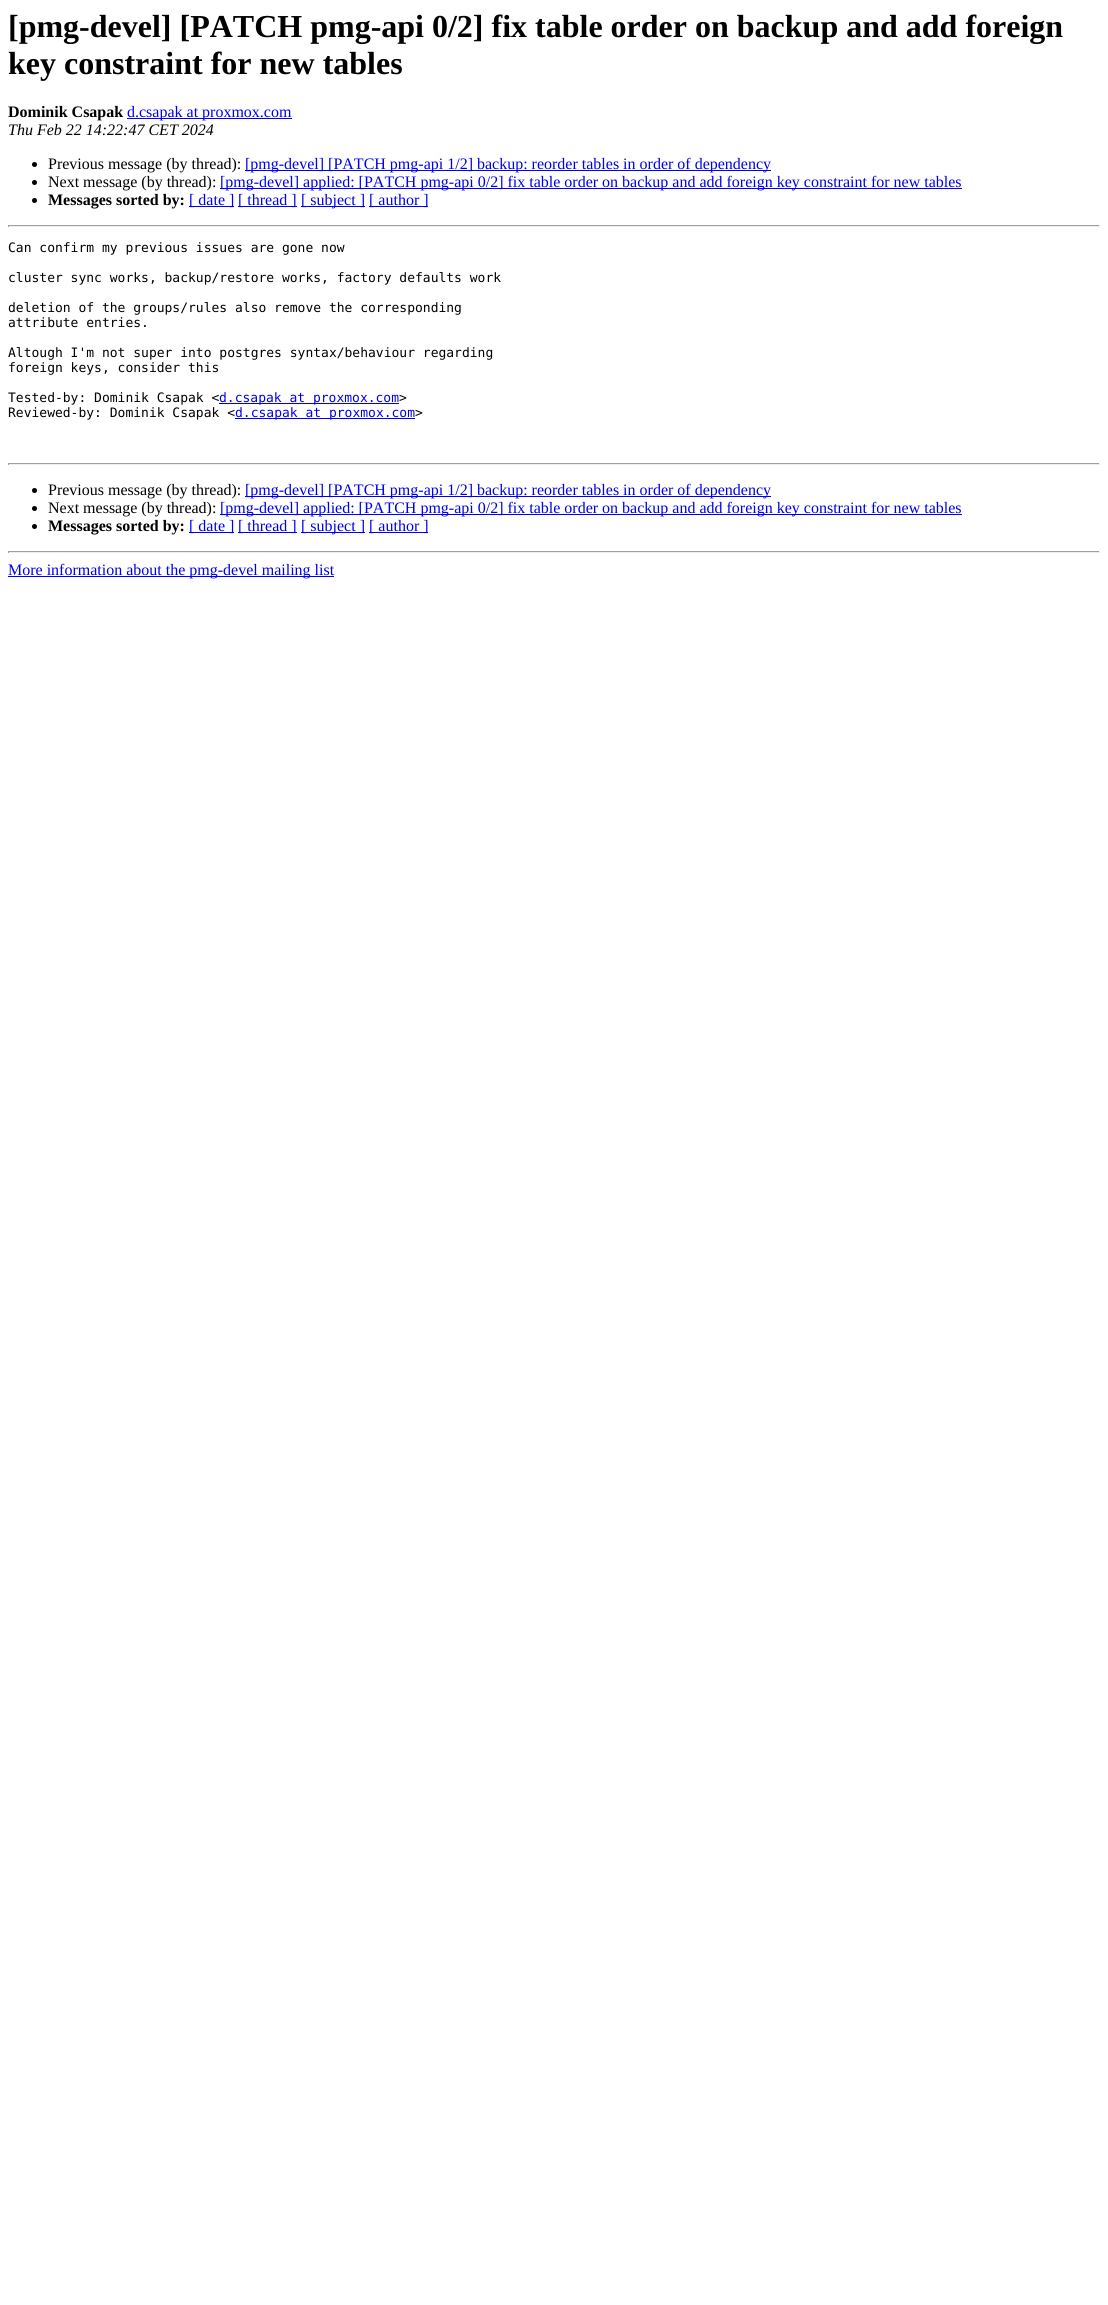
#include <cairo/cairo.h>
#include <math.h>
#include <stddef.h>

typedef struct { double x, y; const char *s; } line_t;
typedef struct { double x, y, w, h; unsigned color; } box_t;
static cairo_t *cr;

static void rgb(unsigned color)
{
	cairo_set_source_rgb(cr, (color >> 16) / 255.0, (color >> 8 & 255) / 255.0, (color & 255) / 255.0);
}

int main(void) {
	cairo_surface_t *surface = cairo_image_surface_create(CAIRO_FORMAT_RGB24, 1108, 2305);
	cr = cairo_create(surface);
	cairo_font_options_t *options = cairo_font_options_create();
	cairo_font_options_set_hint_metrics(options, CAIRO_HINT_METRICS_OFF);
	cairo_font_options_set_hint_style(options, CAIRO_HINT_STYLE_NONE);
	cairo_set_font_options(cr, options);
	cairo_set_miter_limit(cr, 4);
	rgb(0xffffff);
	cairo_paint(cr);
	rgb(0x0000ee);
	cairo_rectangle(cr, 127, 118, 165, 1);
	cairo_fill(cr);
	rgb(0x000000);
	cairo_arc(cr, 34.5, 164.5, 2.5, 0, 2 * M_PI);
	cairo_fill(cr);
	rgb(0x0000ee);
	cairo_rectangle(cr, 245, 170, 526, 1);
	cairo_fill(cr);
	rgb(0x000000);
	cairo_arc(cr, 34.5, 182.5, 2.5, 0, 2 * M_PI);
	cairo_fill(cr);
	rgb(0x0000ee);
	cairo_rectangle(cr, 220, 188, 742, 1);
	cairo_fill(cr);
	rgb(0x000000);
	cairo_arc(cr, 34.5, 200.5, 2.5, 0, 2 * M_PI);
	cairo_fill(cr);
	{
		static const box_t items[] = {
			{189, 206, 45, 1, 0x0000ee},
			{238, 206, 59, 1, 0x0000ee},
			{301, 206, 64, 1, 0x0000ee},
			{369, 206, 59, 1, 0x0000ee},
			{8, 225, 1092, 1, 0x9f9f9f},
			{1099, 225, 1, 2, 0xeeeeee},
			{8, 226, 1092, 1, 0xeeeeee},
			{8, 225, 1, 2, 0x9f9f9f},
			{219, 403, 180, 1, 0x0000ee},
			{235, 418, 180, 1, 0x0000ee},
			{8, 463, 1092, 1, 0x9f9f9f},
			{1099, 463, 1, 2, 0xeeeeee},
			{8, 464, 1092, 1, 0xeeeeee},
			{8, 463, 1, 2, 0x9f9f9f},
		};
		for (size_t i = 0; i < sizeof items / sizeof *items; i++) {
			rgb(items[i].color);
			cairo_rectangle(cr, items[i].x, items[i].y, items[i].w, items[i].h);
			cairo_fill(cr);
		}
	}
	rgb(0x000000);
	cairo_arc(cr, 34.5, 490.5, 2.5, 0, 2 * M_PI);
	cairo_fill(cr);
	rgb(0x0000ee);
	cairo_rectangle(cr, 245, 496, 526, 1);
	cairo_fill(cr);
	rgb(0x000000);
	cairo_arc(cr, 34.5, 508.5, 2.5, 0, 2 * M_PI);
	cairo_fill(cr);
	rgb(0x0000ee);
	cairo_rectangle(cr, 220, 514, 742, 1);
	cairo_fill(cr);
	rgb(0x000000);
	cairo_arc(cr, 34.5, 526.5, 2.5, 0, 2 * M_PI);
	cairo_fill(cr);
	{
		static const box_t items[] = {
			{189, 532, 45, 1, 0x0000ee},
			{238, 532, 59, 1, 0x0000ee},
			{301, 532, 64, 1, 0x0000ee},
			{369, 532, 59, 1, 0x0000ee},
			{8, 551, 1092, 1, 0x9f9f9f},
			{1099, 551, 1, 2, 0xeeeeee},
			{8, 552, 1092, 1, 0xeeeeee},
			{8, 551, 1, 2, 0x9f9f9f},
			{8, 576, 326, 1, 0x0000ee},
		};
		for (size_t i = 0; i < sizeof items / sizeof *items; i++) {
			rgb(items[i].color);
			cairo_rectangle(cr, items[i].x, items[i].y, items[i].w, items[i].h);
			cairo_fill(cr);
		}
	}
	cairo_select_font_face(cr, "Liberation Serif", CAIRO_FONT_SLANT_NORMAL, CAIRO_FONT_WEIGHT_BOLD);
	cairo_set_font_size(cr, 32);
	rgb(0x000000);
	cairo_move_to(cr, 8, 37);
	cairo_show_text(cr, "[pmg-devel] [PATCH pmg-api 0/2] fix table order on backup and add foreign");
	cairo_move_to(cr, 8, 74);
	cairo_show_text(cr, "key constraint for new tables");
	cairo_set_font_size(cr, 16);
	cairo_move_to(cr, 8, 117);
	cairo_show_text(cr, "Dominik Csapak");
	cairo_select_font_face(cr, "Liberation Serif", CAIRO_FONT_SLANT_NORMAL, CAIRO_FONT_WEIGHT_NORMAL);
	rgb(0x0000ee);
	cairo_move_to(cr, 127, 117);
	cairo_show_text(cr, "d.csapak at proxmox.com");
	cairo_select_font_face(cr, "Liberation Serif", CAIRO_FONT_SLANT_ITALIC, CAIRO_FONT_WEIGHT_NORMAL);
	rgb(0x000000);
	cairo_move_to(cr, 8, 135);
	cairo_show_text(cr, "Thu Feb 22 14:22:47 CET 2024");
	cairo_select_font_face(cr, "Liberation Serif", CAIRO_FONT_SLANT_NORMAL, CAIRO_FONT_WEIGHT_NORMAL);
	cairo_move_to(cr, 48, 169);
	cairo_show_text(cr, "Previous message (by thread):");
	rgb(0x0000ee);
	cairo_move_to(cr, 245, 169);
	cairo_show_text(cr, "[pmg-devel] [PATCH pmg-api 1/2] backup: reorder tables in order of dependency");
	rgb(0x000000);
	cairo_move_to(cr, 48, 187);
	cairo_show_text(cr, "Next message (by thread):");
	rgb(0x0000ee);
	cairo_move_to(cr, 220, 187);
	cairo_show_text(cr, "[pmg-devel] applied: [PATCH pmg-api 0/2] fix table order on backup and add foreign key constraint for new tables");
	cairo_select_font_face(cr, "Liberation Serif", CAIRO_FONT_SLANT_NORMAL, CAIRO_FONT_WEIGHT_BOLD);
	rgb(0x000000);
	cairo_move_to(cr, 48, 205);
	cairo_show_text(cr, "Messages sorted by:");
	cairo_select_font_face(cr, "Liberation Serif", CAIRO_FONT_SLANT_NORMAL, CAIRO_FONT_WEIGHT_NORMAL);
	rgb(0x0000ee);
	{
		static const line_t items[] = {
			{189, 205, "[ date ]"},
			{238, 205, "[ thread ]"},
			{301, 205, "[ subject ]"},
			{369, 205, "[ author ]"},
		};
		for (size_t i = 0; i < sizeof items / sizeof *items; i++) {
			cairo_move_to(cr, items[i].x, items[i].y);
			cairo_show_text(cr, items[i].s);
		}
	}
	cairo_select_font_face(cr, "DejaVu Sans Mono", CAIRO_FONT_SLANT_NORMAL, CAIRO_FONT_WEIGHT_NORMAL);
	cairo_set_font_size(cr, 13);
	rgb(0x000000);
	{
		static const line_t items[] = {
			{8, 252, "Can confirm my previous issues are gone now"},
			{8, 282, "cluster sync works, backup/restore works, factory defaults work"},
			{8, 312, "deletion of the groups/rules also remove the corresponding"},
			{8, 327, "attribute entries."},
			{8, 357, "Altough I'm not super into postgres syntax/behaviour regarding"},
			{8, 372, "foreign keys, consider this"},
			{8, 402, "Tested-by: Dominik Csapak <"},
		};
		for (size_t i = 0; i < sizeof items / sizeof *items; i++) {
			cairo_move_to(cr, items[i].x, items[i].y);
			cairo_show_text(cr, items[i].s);
		}
	}
	rgb(0x0000ee);
	cairo_move_to(cr, 219, 402);
	cairo_show_text(cr, "d.csapak at proxmox.com");
	rgb(0x000000);
	cairo_move_to(cr, 399, 402);
	cairo_show_text(cr, ">");
	cairo_move_to(cr, 8, 417);
	cairo_show_text(cr, "Reviewed-by: Dominik Csapak <");
	rgb(0x0000ee);
	cairo_move_to(cr, 235, 417);
	cairo_show_text(cr, "d.csapak at proxmox.com");
	rgb(0x000000);
	cairo_move_to(cr, 415, 417);
	cairo_show_text(cr, ">");
	cairo_select_font_face(cr, "Liberation Serif", CAIRO_FONT_SLANT_NORMAL, CAIRO_FONT_WEIGHT_NORMAL);
	cairo_set_font_size(cr, 16);
	cairo_move_to(cr, 48, 495);
	cairo_show_text(cr, "Previous message (by thread):");
	rgb(0x0000ee);
	cairo_move_to(cr, 245, 495);
	cairo_show_text(cr, "[pmg-devel] [PATCH pmg-api 1/2] backup: reorder tables in order of dependency");
	rgb(0x000000);
	cairo_move_to(cr, 48, 513);
	cairo_show_text(cr, "Next message (by thread):");
	rgb(0x0000ee);
	cairo_move_to(cr, 220, 513);
	cairo_show_text(cr, "[pmg-devel] applied: [PATCH pmg-api 0/2] fix table order on backup and add foreign key constraint for new tables");
	cairo_select_font_face(cr, "Liberation Serif", CAIRO_FONT_SLANT_NORMAL, CAIRO_FONT_WEIGHT_BOLD);
	rgb(0x000000);
	cairo_move_to(cr, 48, 531);
	cairo_show_text(cr, "Messages sorted by:");
	cairo_select_font_face(cr, "Liberation Serif", CAIRO_FONT_SLANT_NORMAL, CAIRO_FONT_WEIGHT_NORMAL);
	rgb(0x0000ee);
	{
		static const line_t items[] = {
			{189, 531, "[ date ]"},
			{238, 531, "[ thread ]"},
			{301, 531, "[ subject ]"},
			{369, 531, "[ author ]"},
			{8, 575, "More information about the pmg-devel mailing list"},
		};
		for (size_t i = 0; i < sizeof items / sizeof *items; i++) {
			cairo_move_to(cr, items[i].x, items[i].y);
			cairo_show_text(cr, items[i].s);
		}
	}
	cairo_surface_write_to_png(surface, "page.png");
	cairo_font_options_destroy(options);
	cairo_destroy(cr);
	cairo_surface_destroy(surface);
	return 0;
}
